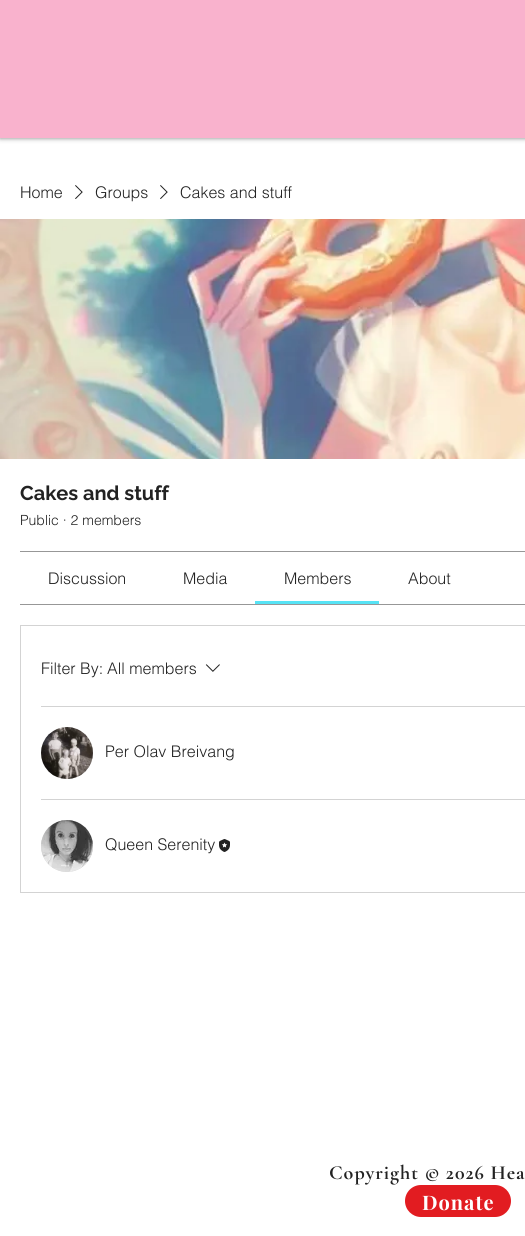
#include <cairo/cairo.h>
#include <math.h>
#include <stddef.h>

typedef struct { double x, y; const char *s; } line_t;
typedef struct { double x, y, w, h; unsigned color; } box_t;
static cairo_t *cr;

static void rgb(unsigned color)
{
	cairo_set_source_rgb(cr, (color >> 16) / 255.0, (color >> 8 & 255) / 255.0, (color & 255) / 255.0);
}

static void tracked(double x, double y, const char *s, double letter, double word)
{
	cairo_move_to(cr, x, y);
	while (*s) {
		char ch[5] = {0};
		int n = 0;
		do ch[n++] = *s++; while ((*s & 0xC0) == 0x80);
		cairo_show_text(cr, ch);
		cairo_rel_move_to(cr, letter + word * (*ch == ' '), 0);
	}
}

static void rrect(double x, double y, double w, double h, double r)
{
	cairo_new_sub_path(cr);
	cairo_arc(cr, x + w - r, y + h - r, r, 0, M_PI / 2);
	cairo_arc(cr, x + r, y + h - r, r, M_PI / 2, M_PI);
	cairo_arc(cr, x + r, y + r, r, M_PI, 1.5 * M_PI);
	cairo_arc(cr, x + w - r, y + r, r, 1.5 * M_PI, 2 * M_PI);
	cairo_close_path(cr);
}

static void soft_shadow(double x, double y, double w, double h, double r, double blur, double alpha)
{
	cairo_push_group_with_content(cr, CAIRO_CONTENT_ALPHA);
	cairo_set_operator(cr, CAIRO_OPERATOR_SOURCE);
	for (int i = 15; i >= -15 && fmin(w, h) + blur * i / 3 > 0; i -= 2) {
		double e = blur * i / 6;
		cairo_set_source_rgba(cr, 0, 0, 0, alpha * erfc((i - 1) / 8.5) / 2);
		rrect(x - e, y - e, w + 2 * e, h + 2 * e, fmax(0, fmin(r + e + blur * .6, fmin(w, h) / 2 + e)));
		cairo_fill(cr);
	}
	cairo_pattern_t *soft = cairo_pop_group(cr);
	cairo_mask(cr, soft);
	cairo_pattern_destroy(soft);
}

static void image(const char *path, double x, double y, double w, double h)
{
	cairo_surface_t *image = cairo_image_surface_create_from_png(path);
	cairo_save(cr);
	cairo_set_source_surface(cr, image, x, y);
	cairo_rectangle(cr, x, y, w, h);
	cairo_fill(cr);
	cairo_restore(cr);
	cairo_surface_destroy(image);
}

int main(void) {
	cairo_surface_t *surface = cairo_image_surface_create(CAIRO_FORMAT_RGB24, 525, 1236);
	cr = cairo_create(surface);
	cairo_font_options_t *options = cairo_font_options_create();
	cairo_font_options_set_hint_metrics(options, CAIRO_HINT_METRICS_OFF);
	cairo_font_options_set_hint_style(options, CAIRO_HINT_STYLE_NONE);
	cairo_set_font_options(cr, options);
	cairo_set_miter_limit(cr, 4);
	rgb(0xffffff);
	cairo_paint(cr);
	rgb(0x000000);
	soft_shadow(0, 0, 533, 138, 0, 2.5, 0.5);
	rgb(0xf9b2cd);
	cairo_rectangle(cr, 0, 0, 525, 138);
	cairo_fill(cr);
	image("img/1.png", 75, 185, 8, 14);
	image("img/1.png", 160, 185, 8, 14);
	image("img/2.png", 0, 219, 525, 240);
	{
		static const box_t items[] = {
			{20, 551, 505, 1, 0x979797},
			{20, 604, 505, 1, 0x979797},
			{255, 601, 124, 3, 0x56e3f5},
		};
		for (size_t i = 0; i < sizeof items / sizeof *items; i++) {
			rgb(items[i].color);
			cairo_rectangle(cr, items[i].x, items[i].y, items[i].w, items[i].h);
			cairo_fill(cr);
		}
	}
	cairo_rectangle(cr, 20.5, 625.5, 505, 267);
	rgb(0xd3d3d3);
	cairo_set_line_width(cr, 1);
	cairo_stroke(cr);
	image("img/3.png", 205, 664, 15, 8);
	cairo_rectangle(cr, 41, 706, 484, 1);
	cairo_fill(cr);
	rgb(0xd8d8d8);
	cairo_arc(cr, 67, 753, 26, 0, 2 * M_PI);
	cairo_fill(cr);
	image("img/4.png", 41, 727, 52, 52);
	rgb(0xd3d3d3);
	cairo_rectangle(cr, 41, 799, 484, 1);
	cairo_fill(cr);
	rgb(0xd8d8d8);
	cairo_arc(cr, 67, 846, 26, 0, 2 * M_PI);
	cairo_fill(cr);
	image("img/5.png", 41, 820, 52, 52);
	image("img/6.png", 219, 839, 11, 13);
	rgb(0xe21c21);
	rrect(405, 1185, 106, 32, 16);
	cairo_fill(cr);
	cairo_select_font_face(cr, "helvetica Light", CAIRO_FONT_SLANT_NORMAL, CAIRO_FONT_WEIGHT_NORMAL);
	cairo_set_font_size(cr, 16);
	rgb(0x222222);
	{
		static const line_t items[] = {
			{20, 198, "Home"},
			{95, 198, "Groups"},
			{180, 198, "Cakes and stuff"},
		};
		for (size_t i = 0; i < sizeof items / sizeof *items; i++) {
			cairo_move_to(cr, items[i].x, items[i].y);
			cairo_show_text(cr, items[i].s);
		}
	}
	cairo_select_font_face(cr, "Raleway", CAIRO_FONT_SLANT_NORMAL, CAIRO_FONT_WEIGHT_BOLD);
	cairo_set_font_size(cr, 20);
	cairo_move_to(cr, 20, 500);
	cairo_show_text(cr, "Cakes and stuff");
	cairo_select_font_face(cr, "helvetica Light", CAIRO_FONT_SLANT_NORMAL, CAIRO_FONT_WEIGHT_NORMAL);
	cairo_set_font_size(cr, 14);
	cairo_move_to(cr, 20, 525);
	cairo_show_text(cr, "Public · 2 members");
	cairo_set_font_size(cr, 16);
	{
		static const line_t items[] = {
			{48, 584, "Discussion"},
			{183, 584, "Media"},
			{284, 584, "Members"},
			{408, 584, "About"},
			{41, 674, "Filter By:"},
			{107, 674, "All members"},
			{105, 757, "Per Olav Breivang"},
			{105, 850, "Queen Serenity"},
		};
		for (size_t i = 0; i < sizeof items / sizeof *items; i++) {
			cairo_move_to(cr, items[i].x, items[i].y);
			cairo_show_text(cr, items[i].s);
		}
	}
	cairo_select_font_face(cr, "Cormorant Garamond", CAIRO_FONT_SLANT_NORMAL, CAIRO_FONT_WEIGHT_BOLD);
	cairo_set_font_size(cr, 20);
	tracked(329, 1179, "Copyright © 2026 Hea", 1, 0);
	cairo_select_font_face(cr, "Playfair Display", CAIRO_FONT_SLANT_NORMAL, CAIRO_FONT_WEIGHT_BOLD);
	rgb(0xffffff);
	tracked(422, 1210, "Donate", 1, 0);
	cairo_surface_write_to_png(surface, "page.png");
	cairo_font_options_destroy(options);
	cairo_destroy(cr);
	cairo_surface_destroy(surface);
	return 0;
}
